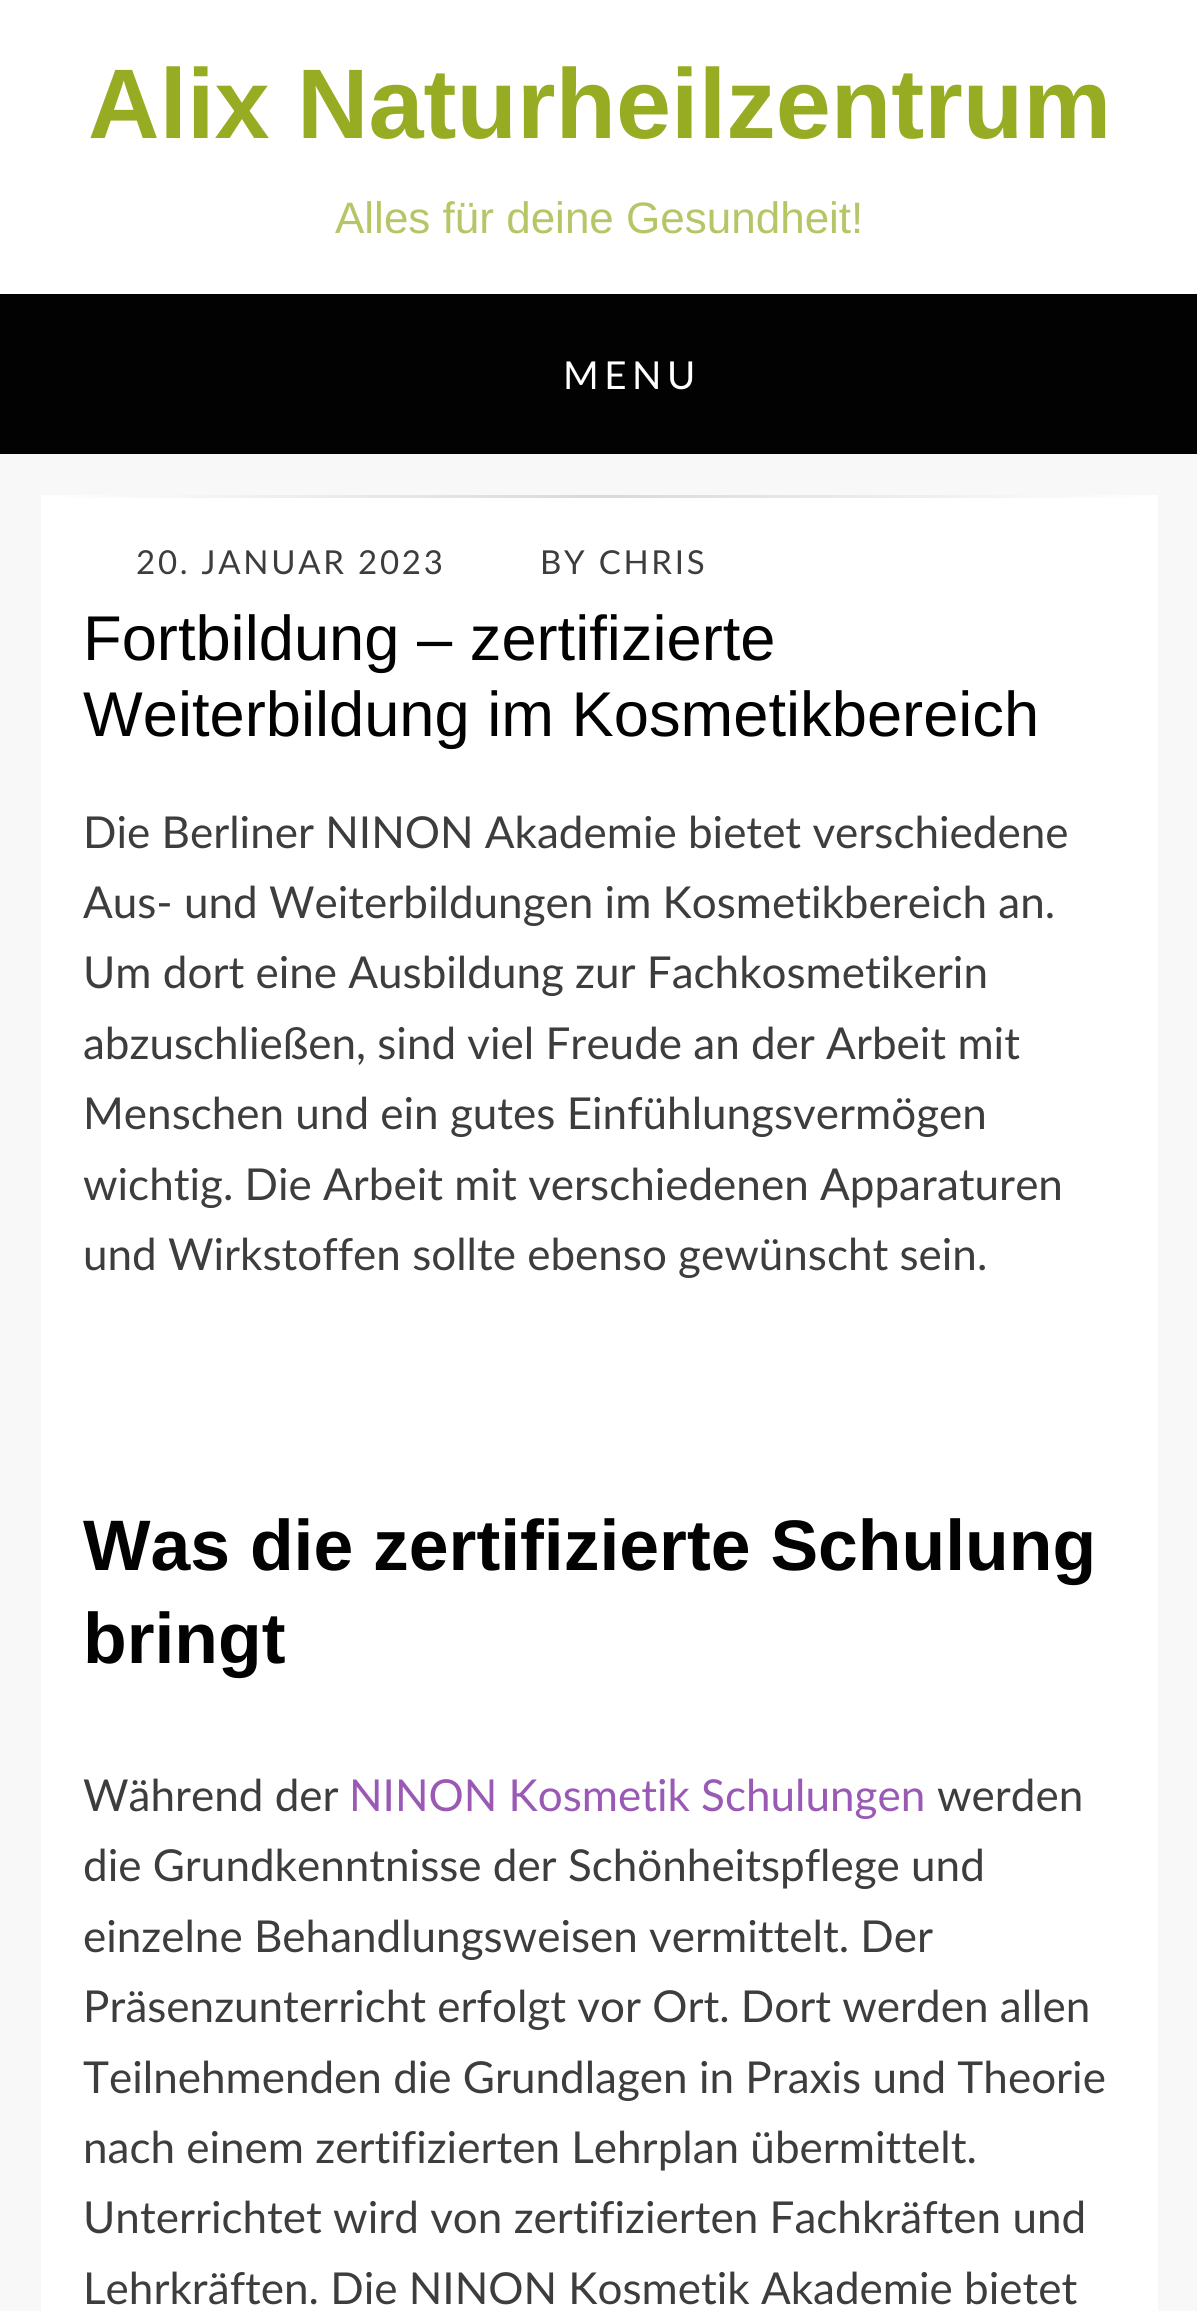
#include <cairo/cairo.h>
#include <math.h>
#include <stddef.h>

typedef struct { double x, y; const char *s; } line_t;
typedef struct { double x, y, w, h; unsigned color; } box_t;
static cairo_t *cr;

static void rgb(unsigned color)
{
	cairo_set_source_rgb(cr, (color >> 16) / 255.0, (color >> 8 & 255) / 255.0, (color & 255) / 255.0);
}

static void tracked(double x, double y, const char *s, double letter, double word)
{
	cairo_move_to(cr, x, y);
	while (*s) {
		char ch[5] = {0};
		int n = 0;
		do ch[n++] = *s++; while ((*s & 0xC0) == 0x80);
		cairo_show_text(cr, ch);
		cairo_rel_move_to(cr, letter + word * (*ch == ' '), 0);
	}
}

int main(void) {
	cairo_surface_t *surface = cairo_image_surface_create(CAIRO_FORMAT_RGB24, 1197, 2311);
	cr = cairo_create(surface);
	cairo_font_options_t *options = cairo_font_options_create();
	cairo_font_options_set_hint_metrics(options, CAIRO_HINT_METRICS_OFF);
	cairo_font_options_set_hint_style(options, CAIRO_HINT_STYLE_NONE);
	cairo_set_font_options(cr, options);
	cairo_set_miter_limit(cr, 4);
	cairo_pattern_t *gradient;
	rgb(0xf8f8f8);
	cairo_paint(cr);
	{
		static const box_t items[] = {
			{0, 0, 1197, 294, 0xffffff},
			{0, 294, 1197, 160, 0x020202},
			{41, 498, 1117, 1813, 0xffffff},
		};
		for (size_t i = 0; i < sizeof items / sizeof *items; i++) {
			rgb(items[i].color);
			cairo_rectangle(cr, items[i].x, items[i].y, items[i].w, items[i].h);
			cairo_fill(cr);
		}
	}
	gradient = cairo_pattern_create_linear(41, 496, 1158, 496);
	cairo_pattern_add_color_stop_rgba(gradient, 0, 1, 1, 1, 1);
	cairo_pattern_add_color_stop_rgba(gradient, 0.5, 0.851, 0.851, 0.851, 1);
	cairo_pattern_add_color_stop_rgba(gradient, 1, 1, 1, 1, 1);
	cairo_set_source(cr, gradient);
	cairo_pattern_destroy(gradient);
	cairo_rectangle(cr, 41, 495, 1117, 3);
	cairo_fill(cr);
	cairo_select_font_face(cr, "Liberation Sans", CAIRO_FONT_SLANT_NORMAL, CAIRO_FONT_WEIGHT_BOLD);
	cairo_set_font_size(cr, 99);
	rgb(0x97ac23);
	cairo_move_to(cr, 88, 138);
	cairo_show_text(cr, "Alix Naturheilzentrum");
	cairo_select_font_face(cr, "Liberation Sans", CAIRO_FONT_SLANT_NORMAL, CAIRO_FONT_WEIGHT_NORMAL);
	cairo_set_font_size(cr, 44);
	rgb(0xb6c565);
	cairo_move_to(cr, 335, 233);
	cairo_show_text(cr, "Alles für deine Gesundheit!");
	cairo_select_font_face(cr, "Lato", CAIRO_FONT_SLANT_NORMAL, CAIRO_FONT_WEIGHT_NORMAL);
	cairo_set_font_size(cr, 38.5);
	rgb(0xffffff);
	tracked(563, 389, "MENU", 5.5, 0);
	cairo_set_font_size(cr, 33);
	rgb(0x3d3d3d);
	tracked(136, 574, "20. JANUAR 2023", 2.75, 0);
	tracked(540, 574, "BY CHRIS", 2.75, 0);
	cairo_select_font_face(cr, "Liberation Sans", CAIRO_FONT_SLANT_NORMAL, CAIRO_FONT_WEIGHT_NORMAL);
	cairo_set_font_size(cr, 63.25);
	rgb(0x020202);
	cairo_move_to(cr, 83, 660);
	cairo_show_text(cr, "Fortbildung – zertifizierte");
	cairo_move_to(cr, 83, 736);
	cairo_show_text(cr, "Weiterbildung im Kosmetikbereich");
	cairo_select_font_face(cr, "Lato", CAIRO_FONT_SLANT_NORMAL, CAIRO_FONT_WEIGHT_NORMAL);
	cairo_set_font_size(cr, 44);
	rgb(0x3d3d3d);
	{
		static const line_t items[] = {
			{83, 848, "Die Berliner NINON Akademie bietet verschiedene"},
			{83, 918, "Aus- und Weiterbildungen im Kosmetikbereich an."},
			{83, 988, "Um dort eine Ausbildung zur Fachkosmetikerin"},
			{83, 1059, "abzuschließen, sind viel Freude an der Arbeit mit"},
			{83, 1129, "Menschen und ein gutes Einfühlungsvermögen"},
			{83, 1200, "wichtig. Die Arbeit mit verschiedenen Apparaturen"},
			{83, 1270, "und Wirkstoffen sollte ebenso gewünscht sein."},
		};
		for (size_t i = 0; i < sizeof items / sizeof *items; i++) {
			cairo_move_to(cr, items[i].x, items[i].y);
			cairo_show_text(cr, items[i].s);
		}
	}
	cairo_select_font_face(cr, "Liberation Sans", CAIRO_FONT_SLANT_NORMAL, CAIRO_FONT_WEIGHT_BOLD);
	cairo_set_font_size(cr, 71.5);
	rgb(0x020202);
	cairo_move_to(cr, 83, 1570);
	cairo_show_text(cr, "Was die zertifizierte Schulung");
	cairo_move_to(cr, 83, 1663);
	cairo_show_text(cr, "bringt");
	cairo_select_font_face(cr, "Lato", CAIRO_FONT_SLANT_NORMAL, CAIRO_FONT_WEIGHT_NORMAL);
	cairo_set_font_size(cr, 44);
	rgb(0x3d3d3d);
	cairo_move_to(cr, 83, 1811);
	cairo_show_text(cr, "Während der");
	rgb(0x9b59b6);
	cairo_move_to(cr, 349, 1811);
	cairo_show_text(cr, "NINON Kosmetik Schulungen");
	rgb(0x3d3d3d);
	{
		static const line_t items[] = {
			{937, 1811, "werden"},
			{83, 1881, "die Grundkenntnisse der Schönheitspflege und"},
			{83, 1952, "einzelne Behandlungsweisen vermittelt. Der"},
			{83, 2022, "Präsenzunterricht erfolgt vor Ort. Dort werden allen"},
			{83, 2093, "Teilnehmenden die Grundlagen in Praxis und Theorie"},
			{83, 2163, "nach einem zertifizierten Lehrplan übermittelt."},
			{83, 2233, "Unterrichtet wird von zertifizierten Fachkräften und"},
			{83, 2304, "Lehrkräften. Die NINON Kosmetik Akademie bietet"},
		};
		for (size_t i = 0; i < sizeof items / sizeof *items; i++) {
			cairo_move_to(cr, items[i].x, items[i].y);
			cairo_show_text(cr, items[i].s);
		}
	}
	cairo_surface_write_to_png(surface, "page.png");
	cairo_font_options_destroy(options);
	cairo_destroy(cr);
	cairo_surface_destroy(surface);
	return 0;
}
